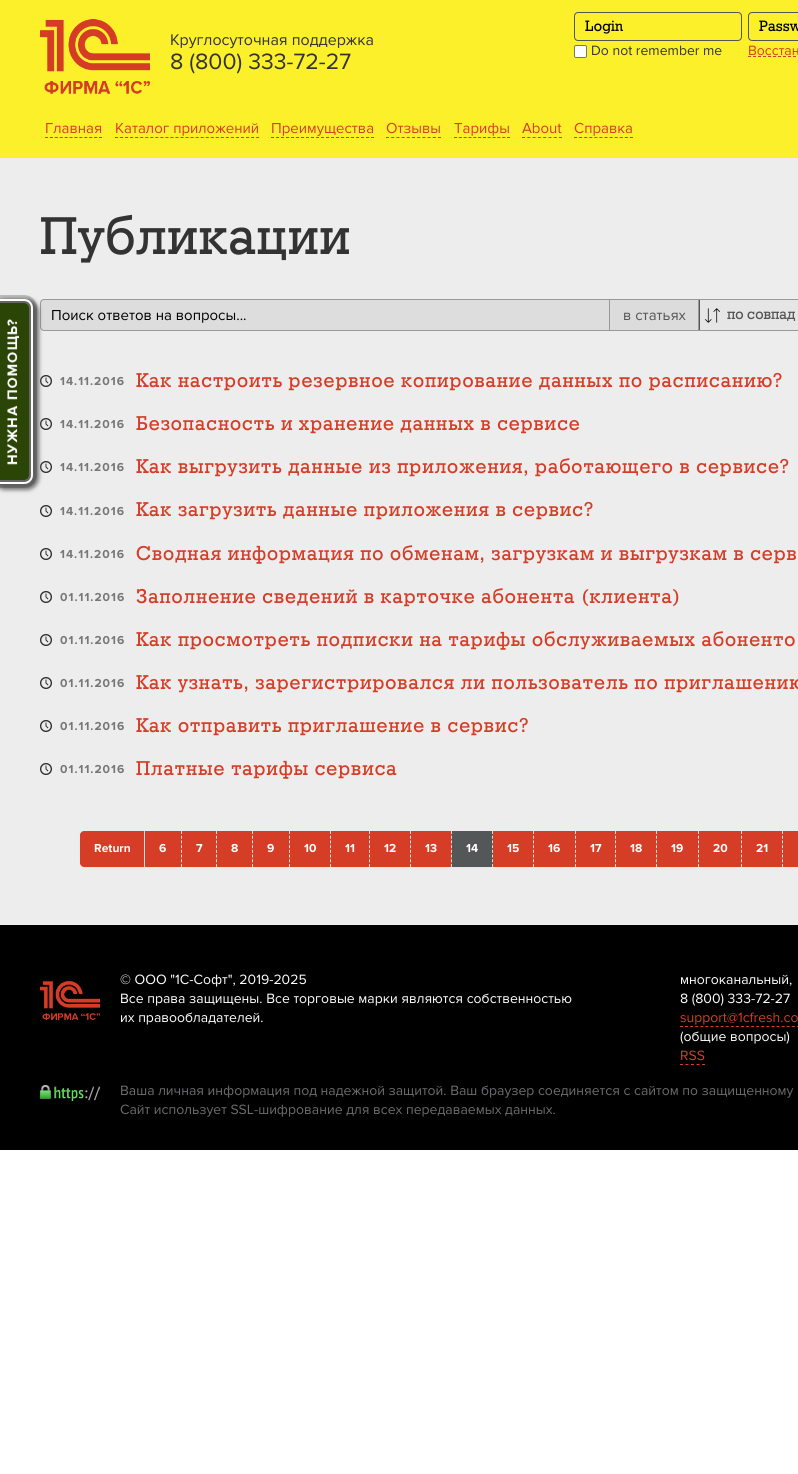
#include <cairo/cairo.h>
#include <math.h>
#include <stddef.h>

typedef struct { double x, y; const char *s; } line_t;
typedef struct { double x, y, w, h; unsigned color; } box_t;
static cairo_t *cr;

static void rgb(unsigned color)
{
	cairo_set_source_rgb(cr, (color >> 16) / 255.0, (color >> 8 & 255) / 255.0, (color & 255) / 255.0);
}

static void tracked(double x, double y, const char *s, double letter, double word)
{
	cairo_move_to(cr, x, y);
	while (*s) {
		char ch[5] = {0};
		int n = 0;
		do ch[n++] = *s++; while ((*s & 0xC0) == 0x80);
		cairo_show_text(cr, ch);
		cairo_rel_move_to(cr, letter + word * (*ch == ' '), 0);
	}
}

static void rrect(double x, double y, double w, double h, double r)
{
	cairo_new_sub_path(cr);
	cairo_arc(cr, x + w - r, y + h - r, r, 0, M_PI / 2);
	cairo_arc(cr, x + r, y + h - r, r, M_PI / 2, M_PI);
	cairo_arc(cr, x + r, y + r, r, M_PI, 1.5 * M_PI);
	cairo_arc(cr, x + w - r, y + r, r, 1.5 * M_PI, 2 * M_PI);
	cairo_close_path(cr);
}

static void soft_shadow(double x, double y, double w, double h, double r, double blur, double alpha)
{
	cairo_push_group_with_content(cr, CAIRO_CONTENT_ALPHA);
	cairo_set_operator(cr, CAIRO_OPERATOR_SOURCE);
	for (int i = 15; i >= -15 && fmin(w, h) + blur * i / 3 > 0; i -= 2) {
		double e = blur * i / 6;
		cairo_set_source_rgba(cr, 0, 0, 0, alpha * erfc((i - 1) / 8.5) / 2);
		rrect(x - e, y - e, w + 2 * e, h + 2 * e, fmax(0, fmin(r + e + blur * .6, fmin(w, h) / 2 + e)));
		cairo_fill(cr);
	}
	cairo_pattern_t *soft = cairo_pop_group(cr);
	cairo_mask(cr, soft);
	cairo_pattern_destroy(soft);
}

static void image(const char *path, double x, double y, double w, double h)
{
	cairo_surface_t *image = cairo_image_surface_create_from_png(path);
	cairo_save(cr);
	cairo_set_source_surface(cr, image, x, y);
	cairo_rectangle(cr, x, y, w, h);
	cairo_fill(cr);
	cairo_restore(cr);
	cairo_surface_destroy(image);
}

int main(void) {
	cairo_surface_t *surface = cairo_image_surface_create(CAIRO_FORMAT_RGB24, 798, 1474);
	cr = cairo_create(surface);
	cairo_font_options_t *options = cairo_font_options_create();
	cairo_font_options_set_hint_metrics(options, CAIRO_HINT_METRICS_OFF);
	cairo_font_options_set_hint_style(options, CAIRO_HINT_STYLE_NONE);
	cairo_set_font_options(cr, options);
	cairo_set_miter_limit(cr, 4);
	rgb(0xffffff);
	cairo_paint(cr);
	rgb(0xfcf02b);
	cairo_rectangle(cr, 0, 0, 798, 158);
	cairo_fill(cr);
	image("img/1.png", 40, 19, 110, 75);
	rrect(574.5, 12.5, 167, 28, 3.5);
	rgb(0x555555);
	cairo_set_line_width(cr, 1);
	cairo_stroke(cr);
	rgb(0xffffff);
	rrect(574.5, 45.5, 12, 12, 1.5);
	cairo_fill_preserve(cr);
	rgb(0x767676);
	cairo_stroke(cr);
	rrect(748.5, 12.5, 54, 28, 3.5);
	rgb(0x555555);
	cairo_stroke(cr);
	cairo_new_path(cr);
	cairo_move_to(cr, 748, 56.5);
	cairo_line_to(cr, 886, 56.5);
	rgb(0xd63d26);
	cairo_set_dash(cr, (double[]){3, 2}, 2, 0);
	cairo_stroke(cr);
	cairo_new_path(cr);
	cairo_move_to(cr, 45, 137.5);
	cairo_line_to(cr, 102, 137.5);
	cairo_set_dash(cr, (double[]){3, 1.91}, 2, 0);
	cairo_stroke(cr);
	cairo_new_path(cr);
	cairo_move_to(cr, 115, 137.5);
	cairo_line_to(cr, 259, 137.5);
	cairo_set_dash(cr, (double[]){3, 2.04}, 2, 0);
	cairo_stroke(cr);
	cairo_new_path(cr);
	cairo_move_to(cr, 271, 137.5);
	cairo_line_to(cr, 374, 137.5);
	cairo_set_dash(cr, (double[]){3, 2}, 2, 0);
	cairo_stroke(cr);
	cairo_new_path(cr);
	cairo_move_to(cr, 386, 137.5);
	cairo_line_to(cr, 441, 137.5);
	cairo_set_dash(cr, (double[]){3, 2.2}, 2, 0);
	cairo_stroke(cr);
	cairo_new_path(cr);
	cairo_move_to(cr, 454, 137.5);
	cairo_line_to(cr, 510, 137.5);
	cairo_set_dash(cr, (double[]){3, 1.82}, 2, 0);
	cairo_stroke(cr);
	cairo_new_path(cr);
	cairo_move_to(cr, 522, 137.5);
	cairo_line_to(cr, 562, 137.5);
	cairo_set_dash(cr, (double[]){3, 2.29}, 2, 0);
	cairo_stroke(cr);
	cairo_new_path(cr);
	cairo_move_to(cr, 574, 137.5);
	cairo_line_to(cr, 633, 137.5);
	cairo_set_dash(cr, (double[]){3, 2.09}, 2, 0);
	cairo_stroke(cr);
	rgb(0xededed);
	cairo_rectangle(cr, 0, 158, 798, 767);
	cairo_fill(cr);
	rgb(0xe6e6e6);
	rrect(40.5, 299.5, 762, 31, 3.5);
	cairo_fill_preserve(cr);
	rgb(0x999999);
	cairo_set_dash(cr, NULL, 0, 0);
	cairo_stroke(cr);
	cairo_set_source_rgba(cr, 0, 0, 0, 0.04);
	cairo_rectangle(cr, 41, 300, 568, 30);
	cairo_fill(cr);
	image("img/4.png", 40, 375, 12, 12);
	image("img/4.png", 40, 418, 12, 12);
	image("img/4.png", 40, 461, 12, 12);
	rgb(0x777777);
	soft_shadow(-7, 299, 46, 191, 12, 2, 1);
	cairo_new_path(cr);
	cairo_move_to(cr, -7, 299);
	cairo_line_to(cr, 24, 299);
	cairo_curve_to(cr, 29, 299, 33, 303, 33, 308);
	cairo_line_to(cr, 33, 475);
	cairo_curve_to(cr, 33, 480, 29, 484, 24, 484);
	cairo_line_to(cr, -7, 484);
	cairo_close_path(cr);
	cairo_set_source_rgba(cr, 0, 0, 0, 0.2);
	cairo_set_line_width(cr, 8);
	cairo_stroke(cr);
	cairo_new_path(cr);
	cairo_move_to(cr, -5, 301);
	cairo_line_to(cr, 24, 301);
	cairo_curve_to(cr, 28, 301, 31, 304, 31, 308);
	cairo_line_to(cr, 31, 475);
	cairo_curve_to(cr, 31, 479, 28, 482, 24, 482);
	cairo_line_to(cr, -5, 482);
	cairo_close_path(cr);
	rgb(0xffffff);
	cairo_set_line_width(cr, 4);
	cairo_stroke(cr);
	cairo_new_path(cr);
	cairo_move_to(cr, -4, 302);
	cairo_line_to(cr, 24, 302);
	cairo_curve_to(cr, 27.5, 302, 30, 304.5, 30, 308);
	cairo_line_to(cr, 30, 475);
	cairo_curve_to(cr, 30, 478.5, 27.5, 481, 24, 481);
	cairo_line_to(cr, -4, 481);
	cairo_close_path(cr);
	cairo_set_source_rgba(cr, 0, 0, 0, 0.6);
	cairo_set_line_width(cr, 2);
	cairo_stroke(cr);
	rgb(0x2b4506);
	cairo_new_path(cr);
	cairo_move_to(cr, -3, 303);
	cairo_line_to(cr, 24, 303);
	cairo_curve_to(cr, 27, 303, 29, 305, 29, 308);
	cairo_line_to(cr, 29, 475);
	cairo_curve_to(cr, 29, 478, 27, 480, 24, 480);
	cairo_line_to(cr, -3, 480);
	cairo_close_path(cr);
	cairo_fill(cr);
	image("img/2.png", 7, 319, 12, 146);
	{
		static const box_t items[] = {
			{610, 300, 88, 30, 0xdcdcdc},
			{698, 300, 1, 30, 0x999999},
			{609, 300, 1, 30, 0x999999},
		};
		for (size_t i = 0; i < sizeof items / sizeof *items; i++) {
			rgb(items[i].color);
			cairo_rectangle(cr, items[i].x, items[i].y, items[i].w, items[i].h);
			cairo_fill(cr);
		}
	}
	image("img/3.png", 705, 308, 15, 15);
	rgb(0x555555);
	cairo_rectangle(cr, 699, 300, 1, 30);
	cairo_fill(cr);
	image("img/4.png", 40, 505, 12, 12);
	image("img/4.png", 40, 548, 12, 12);
	image("img/4.png", 40, 591, 12, 12);
	image("img/4.png", 40, 634, 12, 12);
	image("img/4.png", 40, 677, 12, 12);
	image("img/4.png", 40, 720, 12, 12);
	image("img/4.png", 40, 763, 12, 12);
	rgb(0x000000);
	soft_shadow(80, 832, 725, 36, 4, 1, 0.05);
	rgb(0xd63d26);
	cairo_new_path(cr);
	cairo_move_to(cr, 84, 831);
	cairo_line_to(cr, 145, 831);
	cairo_line_to(cr, 145, 867);
	cairo_line_to(cr, 84, 867);
	cairo_curve_to(cr, 82, 867, 80, 865, 80, 863);
	cairo_line_to(cr, 80, 835);
	cairo_curve_to(cr, 80, 833, 82, 831, 84, 831);
	cairo_close_path(cr);
	cairo_fill(cr);
	rgb(0xdddddd);
	cairo_rectangle(cr, 144, 831, 1, 36);
	cairo_fill(cr);
	rgb(0xd63d26);
	cairo_rectangle(cr, 145, 831, 307, 36);
	cairo_fill(cr);
	cairo_new_path(cr);
	cairo_move_to(cr, 181.5, 831);
	cairo_line_to(cr, 181.5, 867);
	rgb(0xdddddd);
	cairo_set_line_width(cr, 1);
	cairo_set_dash(cr, (double[]){3, 1.71}, 2, 0);
	cairo_stroke(cr);
	cairo_new_path(cr);
	cairo_move_to(cr, 216.5, 831);
	cairo_line_to(cr, 216.5, 867);
	cairo_stroke(cr);
	cairo_new_path(cr);
	cairo_move_to(cr, 252.5, 831);
	cairo_line_to(cr, 252.5, 867);
	cairo_stroke(cr);
	cairo_new_path(cr);
	cairo_move_to(cr, 289.5, 831);
	cairo_line_to(cr, 289.5, 867);
	cairo_stroke(cr);
	cairo_new_path(cr);
	cairo_move_to(cr, 330.5, 831);
	cairo_line_to(cr, 330.5, 867);
	cairo_stroke(cr);
	cairo_new_path(cr);
	cairo_move_to(cr, 369.5, 831);
	cairo_line_to(cr, 369.5, 867);
	cairo_stroke(cr);
	cairo_new_path(cr);
	cairo_move_to(cr, 410.5, 831);
	cairo_line_to(cr, 410.5, 867);
	cairo_stroke(cr);
	cairo_new_path(cr);
	cairo_move_to(cr, 451.5, 831);
	cairo_line_to(cr, 451.5, 867);
	cairo_stroke(cr);
	rgb(0x535758);
	cairo_rectangle(cr, 452, 831, 41, 36);
	cairo_fill(cr);
	cairo_new_path(cr);
	cairo_move_to(cr, 492.5, 831);
	cairo_line_to(cr, 492.5, 867);
	rgb(0xdddddd);
	cairo_stroke(cr);
	rgb(0xd63d26);
	cairo_rectangle(cr, 493, 831, 305, 36);
	cairo_fill(cr);
	cairo_new_path(cr);
	cairo_move_to(cr, 533.5, 831);
	cairo_line_to(cr, 533.5, 867);
	rgb(0xdddddd);
	cairo_stroke(cr);
	cairo_new_path(cr);
	cairo_move_to(cr, 575.5, 831);
	cairo_line_to(cr, 575.5, 867);
	cairo_stroke(cr);
	cairo_new_path(cr);
	cairo_move_to(cr, 615.5, 831);
	cairo_line_to(cr, 615.5, 867);
	cairo_stroke(cr);
	cairo_new_path(cr);
	cairo_move_to(cr, 656.5, 831);
	cairo_line_to(cr, 656.5, 867);
	cairo_stroke(cr);
	cairo_new_path(cr);
	cairo_move_to(cr, 698.5, 831);
	cairo_line_to(cr, 698.5, 867);
	cairo_stroke(cr);
	cairo_new_path(cr);
	cairo_move_to(cr, 741.5, 831);
	cairo_line_to(cr, 741.5, 867);
	cairo_stroke(cr);
	cairo_new_path(cr);
	cairo_move_to(cr, 782.5, 831);
	cairo_line_to(cr, 782.5, 867);
	cairo_stroke(cr);
	rgb(0x000000);
	cairo_rectangle(cr, 0, 925, 798, 225);
	cairo_fill(cr);
	image("img/5.png", 40, 980, 60, 40);
	cairo_new_path(cr);
	cairo_move_to(cr, 680, 1026.5);
	cairo_line_to(cr, 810, 1026.5);
	rgb(0xd63d26);
	cairo_set_dash(cr, (double[]){3, 2.08}, 2, 0);
	cairo_stroke(cr);
	cairo_new_path(cr);
	cairo_move_to(cr, 680, 1064.5);
	cairo_line_to(cr, 705, 1064.5);
	cairo_set_dash(cr, (double[]){3, 2.5}, 2, 0);
	cairo_stroke(cr);
	image("img/6.png", 40, 1085, 60, 16);
	cairo_select_font_face(cr, "Proxima Nova", CAIRO_FONT_SLANT_NORMAL, CAIRO_FONT_WEIGHT_NORMAL);
	cairo_set_font_size(cr, 16);
	rgb(0x333333);
	cairo_move_to(cr, 170, 45);
	cairo_show_text(cr, "Круглосуточная поддержка");
	cairo_set_font_size(cr, 23);
	cairo_move_to(cr, 170, 69);
	cairo_show_text(cr, "8 (800) 333-72-27");
	cairo_select_font_face(cr, "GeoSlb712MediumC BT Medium", CAIRO_FONT_SLANT_NORMAL, CAIRO_FONT_WEIGHT_NORMAL);
	cairo_set_font_size(cr, 15);
	rgb(0x000000);
	cairo_move_to(cr, 585, 31);
	cairo_show_text(cr, "Login");
	cairo_select_font_face(cr, "Proxima Nova", CAIRO_FONT_SLANT_NORMAL, CAIRO_FONT_WEIGHT_NORMAL);
	cairo_set_font_size(cr, 14);
	rgb(0x333333);
	cairo_move_to(cr, 591, 55);
	cairo_show_text(cr, "Do not remember me");
	cairo_select_font_face(cr, "GeoSlb712MediumC BT Medium", CAIRO_FONT_SLANT_NORMAL, CAIRO_FONT_WEIGHT_NORMAL);
	cairo_set_font_size(cr, 15);
	rgb(0x000000);
	cairo_move_to(cr, 759, 31);
	cairo_show_text(cr, "Passw");
	cairo_select_font_face(cr, "Proxima Nova", CAIRO_FONT_SLANT_NORMAL, CAIRO_FONT_WEIGHT_NORMAL);
	cairo_set_font_size(cr, 14);
	rgb(0xd63d26);
	cairo_move_to(cr, 748, 55);
	cairo_show_text(cr, "Восстан");
	cairo_set_font_size(cr, 15);
	{
		static const line_t items[] = {
			{45, 133, "Главная"},
			{115, 133, "Каталог приложений"},
			{271, 133, "Преимущества"},
			{386, 133, "Отзывы"},
			{454, 133, "Тарифы"},
			{522, 133, "About"},
			{574, 133, "Справка"},
		};
		for (size_t i = 0; i < sizeof items / sizeof *items; i++) {
			cairo_move_to(cr, items[i].x, items[i].y);
			cairo_show_text(cr, items[i].s);
		}
	}
	cairo_select_font_face(cr, "GeoSlb712MediumC BT Medium", CAIRO_FONT_SLANT_NORMAL, CAIRO_FONT_WEIGHT_NORMAL);
	cairo_set_font_size(cr, 53);
	rgb(0x333333);
	tracked(40, 254, "Публикации", 1, 0);
	cairo_select_font_face(cr, "Proxima Nova", CAIRO_FONT_SLANT_NORMAL, CAIRO_FONT_WEIGHT_NORMAL);
	cairo_set_font_size(cr, 15);
	rgb(0x000000);
	cairo_move_to(cr, 51, 320);
	cairo_show_text(cr, "Поиск ответов на вопросы...");
	rgb(0x555555);
	cairo_move_to(cr, 623, 320);
	cairo_show_text(cr, "в статьях");
	cairo_select_font_face(cr, "GeoSlb712MediumC BT Medium", CAIRO_FONT_SLANT_NORMAL, CAIRO_FONT_WEIGHT_NORMAL);
	cairo_move_to(cr, 727, 319);
	cairo_show_text(cr, "по совпад");
	cairo_select_font_face(cr, "Proxima Nova", CAIRO_FONT_SLANT_NORMAL, CAIRO_FONT_WEIGHT_BOLD);
	cairo_set_font_size(cr, 12);
	rgb(0x777777);
	tracked(60, 385, "14.11.2016", 1, 0);
	cairo_select_font_face(cr, "GeoSlb712MediumC BT Medium", CAIRO_FONT_SLANT_NORMAL, CAIRO_FONT_WEIGHT_NORMAL);
	cairo_set_font_size(cr, 20);
	rgb(0xd63d26);
	tracked(136, 387, "Как настроить резервное копирование данных по расписанию?", 1, 0);
	cairo_select_font_face(cr, "Proxima Nova", CAIRO_FONT_SLANT_NORMAL, CAIRO_FONT_WEIGHT_BOLD);
	cairo_set_font_size(cr, 12);
	rgb(0x777777);
	tracked(60, 428, "14.11.2016", 1, 0);
	cairo_select_font_face(cr, "GeoSlb712MediumC BT Medium", CAIRO_FONT_SLANT_NORMAL, CAIRO_FONT_WEIGHT_NORMAL);
	cairo_set_font_size(cr, 20);
	rgb(0xd63d26);
	tracked(136, 430, "Безопасность и хранение данных в сервисе", 1, 0);
	cairo_select_font_face(cr, "Proxima Nova", CAIRO_FONT_SLANT_NORMAL, CAIRO_FONT_WEIGHT_BOLD);
	cairo_set_font_size(cr, 12);
	rgb(0x777777);
	tracked(60, 471, "14.11.2016", 1, 0);
	cairo_select_font_face(cr, "GeoSlb712MediumC BT Medium", CAIRO_FONT_SLANT_NORMAL, CAIRO_FONT_WEIGHT_NORMAL);
	cairo_set_font_size(cr, 20);
	rgb(0xd63d26);
	tracked(136, 473, "Как выгрузить данные из приложения, работающего в сервисе?", 1, 0);
	cairo_select_font_face(cr, "Proxima Nova", CAIRO_FONT_SLANT_NORMAL, CAIRO_FONT_WEIGHT_BOLD);
	cairo_set_font_size(cr, 12);
	rgb(0x777777);
	tracked(60, 515, "14.11.2016", 1, 0);
	cairo_select_font_face(cr, "GeoSlb712MediumC BT Medium", CAIRO_FONT_SLANT_NORMAL, CAIRO_FONT_WEIGHT_NORMAL);
	cairo_set_font_size(cr, 20);
	rgb(0xd63d26);
	tracked(136, 516, "Как загрузить данные приложения в сервис?", 1, 0);
	cairo_select_font_face(cr, "Proxima Nova", CAIRO_FONT_SLANT_NORMAL, CAIRO_FONT_WEIGHT_BOLD);
	cairo_set_font_size(cr, 12);
	rgb(0x777777);
	tracked(60, 558, "14.11.2016", 1, 0);
	cairo_select_font_face(cr, "GeoSlb712MediumC BT Medium", CAIRO_FONT_SLANT_NORMAL, CAIRO_FONT_WEIGHT_NORMAL);
	cairo_set_font_size(cr, 20);
	rgb(0xd63d26);
	tracked(136, 560, "Сводная информация по обменам, загрузкам и выгрузкам в серв", 1, 0);
	cairo_select_font_face(cr, "Proxima Nova", CAIRO_FONT_SLANT_NORMAL, CAIRO_FONT_WEIGHT_BOLD);
	cairo_set_font_size(cr, 12);
	rgb(0x777777);
	tracked(60, 601, "01.11.2016", 1, 0);
	cairo_select_font_face(cr, "GeoSlb712MediumC BT Medium", CAIRO_FONT_SLANT_NORMAL, CAIRO_FONT_WEIGHT_NORMAL);
	cairo_set_font_size(cr, 20);
	rgb(0xd63d26);
	tracked(136, 603, "Заполнение сведений в карточке абонента (клиента)", 1, 0);
	cairo_select_font_face(cr, "Proxima Nova", CAIRO_FONT_SLANT_NORMAL, CAIRO_FONT_WEIGHT_BOLD);
	cairo_set_font_size(cr, 12);
	rgb(0x777777);
	tracked(60, 644, "01.11.2016", 1, 0);
	cairo_select_font_face(cr, "GeoSlb712MediumC BT Medium", CAIRO_FONT_SLANT_NORMAL, CAIRO_FONT_WEIGHT_NORMAL);
	cairo_set_font_size(cr, 20);
	rgb(0xd63d26);
	tracked(136, 646, "Как просмотреть подписки на тарифы обслуживаемых абоненто", 1, 0);
	cairo_select_font_face(cr, "Proxima Nova", CAIRO_FONT_SLANT_NORMAL, CAIRO_FONT_WEIGHT_BOLD);
	cairo_set_font_size(cr, 12);
	rgb(0x777777);
	tracked(60, 687, "01.11.2016", 1, 0);
	cairo_select_font_face(cr, "GeoSlb712MediumC BT Medium", CAIRO_FONT_SLANT_NORMAL, CAIRO_FONT_WEIGHT_NORMAL);
	cairo_set_font_size(cr, 20);
	rgb(0xd63d26);
	tracked(136, 689, "Как узнать, зарегистрировался ли пользователь по приглашению", 1, 0);
	cairo_select_font_face(cr, "Proxima Nova", CAIRO_FONT_SLANT_NORMAL, CAIRO_FONT_WEIGHT_BOLD);
	cairo_set_font_size(cr, 12);
	rgb(0x777777);
	tracked(60, 730, "01.11.2016", 1, 0);
	cairo_select_font_face(cr, "GeoSlb712MediumC BT Medium", CAIRO_FONT_SLANT_NORMAL, CAIRO_FONT_WEIGHT_NORMAL);
	cairo_set_font_size(cr, 20);
	rgb(0xd63d26);
	tracked(136, 732, "Как отправить приглашение в сервис?", 1, 0);
	cairo_select_font_face(cr, "Proxima Nova", CAIRO_FONT_SLANT_NORMAL, CAIRO_FONT_WEIGHT_BOLD);
	cairo_set_font_size(cr, 12);
	rgb(0x777777);
	tracked(60, 773, "01.11.2016", 1, 0);
	cairo_select_font_face(cr, "GeoSlb712MediumC BT Medium", CAIRO_FONT_SLANT_NORMAL, CAIRO_FONT_WEIGHT_NORMAL);
	cairo_set_font_size(cr, 20);
	rgb(0xd63d26);
	tracked(136, 775, "Платные тарифы сервиса", 1, 0);
	cairo_select_font_face(cr, "Proxima Nova", CAIRO_FONT_SLANT_NORMAL, CAIRO_FONT_WEIGHT_BOLD);
	cairo_set_font_size(cr, 12);
	rgb(0xffffff);
	{
		static const line_t items[] = {
			{94, 852, "Return"},
			{159, 852, "6"},
			{196, 852, "7"},
			{231, 852, "8"},
			{267, 852, "9"},
			{304, 852, "10"},
			{345, 852, "11"},
			{384, 852, "12"},
			{425, 852, "13"},
			{466, 852, "14"},
			{507, 852, "15"},
			{548, 852, "16"},
			{590, 852, "17"},
			{630, 852, "18"},
			{671, 852, "19"},
			{713, 852, "20"},
			{756, 852, "21"},
		};
		for (size_t i = 0; i < sizeof items / sizeof *items; i++) {
			cairo_move_to(cr, items[i].x, items[i].y);
			cairo_show_text(cr, items[i].s);
		}
	}
	cairo_select_font_face(cr, "Proxima Nova", CAIRO_FONT_SLANT_NORMAL, CAIRO_FONT_WEIGHT_NORMAL);
	cairo_set_font_size(cr, 14);
	{
		static const line_t items[] = {
			{120, 984, "© ООО \"1С-Софт\", 2019-2025"},
			{120, 1003, "Все права защищены. Все торговые марки являются собственностью"},
			{120, 1022, "их правообладателей."},
			{680, 984, "многоканальный,"},
			{680, 1003, "8 (800) 333-72-27"},
		};
		for (size_t i = 0; i < sizeof items / sizeof *items; i++) {
			cairo_move_to(cr, items[i].x, items[i].y);
			cairo_show_text(cr, items[i].s);
		}
	}
	rgb(0xd63d26);
	cairo_move_to(cr, 680, 1022);
	cairo_show_text(cr, "support@1cfresh.co");
	rgb(0xffffff);
	cairo_move_to(cr, 680, 1041);
	cairo_show_text(cr, "(общие вопросы)");
	rgb(0xd63d26);
	cairo_move_to(cr, 680, 1060);
	cairo_show_text(cr, "RSS");
	rgb(0x6c6c6e);
	cairo_move_to(cr, 120, 1095);
	cairo_show_text(cr, "Ваша личная информация под надежной защитой. Ваш браузер соединяется с сайтом по защищенному");
	cairo_move_to(cr, 120, 1114);
	cairo_show_text(cr, "Сайт использует SSL-шифрование для всех передаваемых данных.");
	cairo_surface_write_to_png(surface, "page.png");
	cairo_font_options_destroy(options);
	cairo_destroy(cr);
	cairo_surface_destroy(surface);
	return 0;
}
